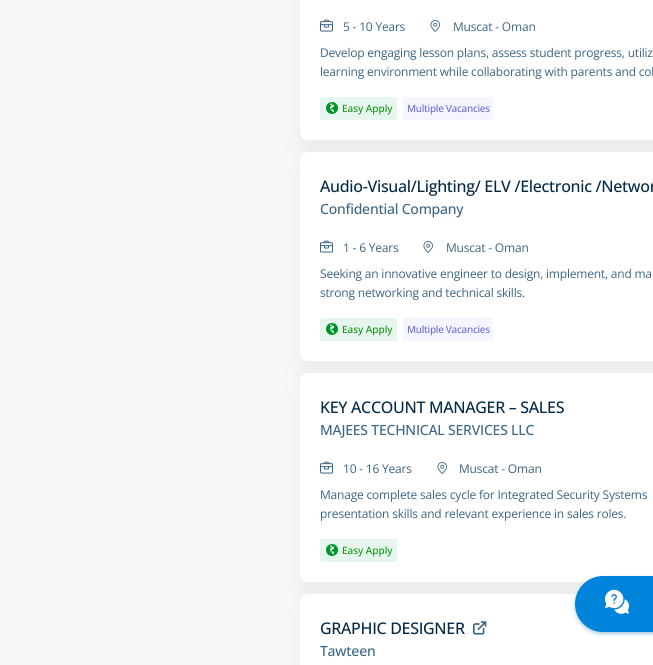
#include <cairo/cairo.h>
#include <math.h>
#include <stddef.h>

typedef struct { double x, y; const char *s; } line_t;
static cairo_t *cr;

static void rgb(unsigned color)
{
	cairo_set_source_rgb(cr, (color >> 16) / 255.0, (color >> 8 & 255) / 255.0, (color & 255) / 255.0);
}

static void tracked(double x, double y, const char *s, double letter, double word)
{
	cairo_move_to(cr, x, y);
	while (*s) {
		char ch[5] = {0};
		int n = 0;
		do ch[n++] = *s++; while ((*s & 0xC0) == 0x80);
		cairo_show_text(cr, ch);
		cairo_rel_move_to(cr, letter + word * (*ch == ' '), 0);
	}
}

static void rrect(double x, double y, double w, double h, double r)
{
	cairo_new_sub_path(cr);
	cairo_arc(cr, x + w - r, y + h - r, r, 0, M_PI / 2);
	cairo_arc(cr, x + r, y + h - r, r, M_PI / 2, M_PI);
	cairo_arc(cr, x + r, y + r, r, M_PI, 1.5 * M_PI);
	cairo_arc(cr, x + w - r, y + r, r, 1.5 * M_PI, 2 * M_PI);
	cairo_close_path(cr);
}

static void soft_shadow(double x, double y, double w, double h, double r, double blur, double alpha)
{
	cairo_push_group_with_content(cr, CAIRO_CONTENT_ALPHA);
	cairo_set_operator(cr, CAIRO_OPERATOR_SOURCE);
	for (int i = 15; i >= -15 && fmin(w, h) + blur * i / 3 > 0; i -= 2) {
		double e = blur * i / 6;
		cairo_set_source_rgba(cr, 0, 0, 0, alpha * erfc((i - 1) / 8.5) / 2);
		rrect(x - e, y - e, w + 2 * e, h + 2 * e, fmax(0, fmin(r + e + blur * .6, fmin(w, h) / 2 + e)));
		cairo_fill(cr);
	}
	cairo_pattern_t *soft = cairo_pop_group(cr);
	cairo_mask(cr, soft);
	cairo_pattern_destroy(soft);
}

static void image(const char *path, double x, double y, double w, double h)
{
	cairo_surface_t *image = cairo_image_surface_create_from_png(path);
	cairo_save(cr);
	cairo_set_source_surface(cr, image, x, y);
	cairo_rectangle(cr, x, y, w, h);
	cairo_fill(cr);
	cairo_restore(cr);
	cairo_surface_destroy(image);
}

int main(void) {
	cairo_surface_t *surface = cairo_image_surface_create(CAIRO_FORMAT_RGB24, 653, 665);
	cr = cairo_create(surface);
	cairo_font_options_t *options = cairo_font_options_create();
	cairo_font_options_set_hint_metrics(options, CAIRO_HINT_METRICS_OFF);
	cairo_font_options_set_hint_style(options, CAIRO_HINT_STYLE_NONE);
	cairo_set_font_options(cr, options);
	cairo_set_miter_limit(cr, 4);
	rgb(0xf8f8f8);
	cairo_paint(cr);
	rgb(0x0d0d0d);
	soft_shadow(300, -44, 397, 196, 8, 12, 0.06);
	rgb(0xffffff);
	rrect(300, -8, 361, 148, 8);
	cairo_fill(cr);
	image("img/1.png", 320, 19, 13, 13);
	image("img/2.png", 430, 20, 10, 12);
	rgb(0xe6f6ee);
	rrect(320, 97, 77, 23, 2);
	cairo_fill(cr);
	image("img/3.png", 326, 102, 12, 12);
	rgb(0xf5f5ff);
	rrect(403, 97, 90, 23, 2);
	cairo_fill(cr);
	rgb(0x0d0d0d);
	soft_shadow(300, 164, 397, 209, 8, 12, 0.06);
	rgb(0xffffff);
	rrect(300, 152, 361, 209, 8);
	cairo_fill(cr);
	image("img/1.png", 320, 240, 13, 13);
	image("img/2.png", 423, 241, 10, 12);
	rgb(0xe6f6ee);
	rrect(320, 318, 77, 23, 2);
	cairo_fill(cr);
	image("img/3.png", 326, 323, 12, 12);
	rgb(0xf5f5ff);
	rrect(403, 318, 90, 23, 2);
	cairo_fill(cr);
	rgb(0x0d0d0d);
	soft_shadow(300, 385, 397, 209, 8, 12, 0.06);
	rgb(0xffffff);
	rrect(300, 373, 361, 209, 8);
	cairo_fill(cr);
	image("img/1.png", 320, 461, 13, 13);
	image("img/2.png", 437, 462, 10, 12);
	rgb(0xe6f6ee);
	rrect(320, 539, 77, 23, 2);
	cairo_fill(cr);
	image("img/3.png", 326, 544, 12, 12);
	rgb(0x0d0d0d);
	soft_shadow(300, 606, 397, 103, 8, 12, 0.06);
	rgb(0xffffff);
	rrect(300, 594, 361, 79, 8);
	cairo_fill(cr);
	rgb(0xabcdde);
	soft_shadow(575, 578, 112, 56, 28, 2, 1);
	rgb(0x0083da);
	cairo_new_path(cr);
	cairo_move_to(cr, 603, 576);
	cairo_line_to(cr, 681, 576);
	cairo_line_to(cr, 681, 632);
	cairo_line_to(cr, 603, 632);
	cairo_curve_to(cr, 587.5, 632, 575, 619.5, 575, 604);
	cairo_curve_to(cr, 575, 588.5, 587.5, 576, 603, 576);
	cairo_close_path(cr);
	cairo_fill(cr);
	cairo_select_font_face(cr, "Open Sans", CAIRO_FONT_SLANT_NORMAL, CAIRO_FONT_WEIGHT_NORMAL);
	cairo_set_font_size(cr, 12);
	rgb(0x3b6585);
	{
		static const line_t items[] = {
			{343, 31, "5 - 10 Years"},
			{453, 31, "Muscat - Oman"},
			{320, 57, "Develop engaging lesson plans, assess student progress, utiliz"},
			{320, 76, "learning environment while collaborating with parents and col"},
		};
		for (size_t i = 0; i < sizeof items / sizeof *items; i++) {
			tracked(items[i].x, items[i].y, items[i].s, -0.2, 0);
		}
	}
	cairo_select_font_face(cr, "Open Sans Medium", CAIRO_FONT_SLANT_NORMAL, CAIRO_FONT_WEIGHT_NORMAL);
	cairo_set_font_size(cr, 10);
	rgb(0x129512);
	cairo_move_to(cr, 342, 112);
	cairo_show_text(cr, "Easy Apply");
	rgb(0x6f6cd0);
	tracked(407, 112, "Multiple Vacancies", -0.3, 0);
	cairo_set_font_size(cr, 16);
	rgb(0x032946);
	tracked(320, 192, "Audio-Visual/Lighting/ ELV /Electronic /Networ", -0.3, 0);
	cairo_set_font_size(cr, 14);
	rgb(0x3b6585);
	tracked(320, 214, "Confidential Company", -0.2, 0);
	cairo_select_font_face(cr, "Open Sans", CAIRO_FONT_SLANT_NORMAL, CAIRO_FONT_WEIGHT_NORMAL);
	cairo_set_font_size(cr, 12);
	{
		static const line_t items[] = {
			{343, 252, "1 - 6 Years"},
			{446, 252, "Muscat - Oman"},
			{320, 278, "Seeking an innovative engineer to design, implement, and ma"},
			{320, 297, "strong networking and technical skills."},
		};
		for (size_t i = 0; i < sizeof items / sizeof *items; i++) {
			tracked(items[i].x, items[i].y, items[i].s, -0.2, 0);
		}
	}
	cairo_select_font_face(cr, "Open Sans Medium", CAIRO_FONT_SLANT_NORMAL, CAIRO_FONT_WEIGHT_NORMAL);
	cairo_set_font_size(cr, 10);
	rgb(0x129512);
	cairo_move_to(cr, 342, 333);
	cairo_show_text(cr, "Easy Apply");
	rgb(0x6f6cd0);
	tracked(407, 333, "Multiple Vacancies", -0.3, 0);
	cairo_set_font_size(cr, 16);
	rgb(0x032946);
	tracked(320, 413, "KEY ACCOUNT MANAGER – SALES", -0.3, 0);
	cairo_set_font_size(cr, 14);
	rgb(0x3b6585);
	tracked(320, 435, "MAJEES TECHNICAL SERVICES LLC", -0.2, 0);
	cairo_select_font_face(cr, "Open Sans", CAIRO_FONT_SLANT_NORMAL, CAIRO_FONT_WEIGHT_NORMAL);
	cairo_set_font_size(cr, 12);
	{
		static const line_t items[] = {
			{343, 473, "10 - 16 Years"},
			{459, 473, "Muscat - Oman"},
			{320, 499, "Manage complete sales cycle for Integrated Security Systems"},
			{320, 518, "presentation skills and relevant experience in sales roles."},
		};
		for (size_t i = 0; i < sizeof items / sizeof *items; i++) {
			tracked(items[i].x, items[i].y, items[i].s, -0.2, 0);
		}
	}
	cairo_select_font_face(cr, "Open Sans Medium", CAIRO_FONT_SLANT_NORMAL, CAIRO_FONT_WEIGHT_NORMAL);
	cairo_set_font_size(cr, 10);
	rgb(0x129512);
	cairo_move_to(cr, 342, 554);
	cairo_show_text(cr, "Easy Apply");
	cairo_set_font_size(cr, 16);
	rgb(0x032946);
	tracked(320, 634, "GRAPHIC DESIGNER", -0.3, 0);
	cairo_select_font_face(cr, "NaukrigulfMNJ", CAIRO_FONT_SLANT_NORMAL, CAIRO_FONT_WEIGHT_BOLD);
	cairo_set_font_size(cr, 13);
	rgb(0x3b6585);
	tracked(473, 632, "&", -0.3, 0);
	cairo_select_font_face(cr, "Open Sans Medium", CAIRO_FONT_SLANT_NORMAL, CAIRO_FONT_WEIGHT_NORMAL);
	cairo_set_font_size(cr, 14);
	tracked(320, 656, "Tawteen", -0.2, 0);
	cairo_select_font_face(cr, "NaukrigulfMNJ", CAIRO_FONT_SLANT_NORMAL, CAIRO_FONT_WEIGHT_NORMAL);
	cairo_set_font_size(cr, 24);
	rgb(0xffffff);
	cairo_move_to(cr, 605, 609);
	cairo_show_text(cr, "'");
	cairo_surface_write_to_png(surface, "page.png");
	cairo_font_options_destroy(options);
	cairo_destroy(cr);
	cairo_surface_destroy(surface);
	return 0;
}
